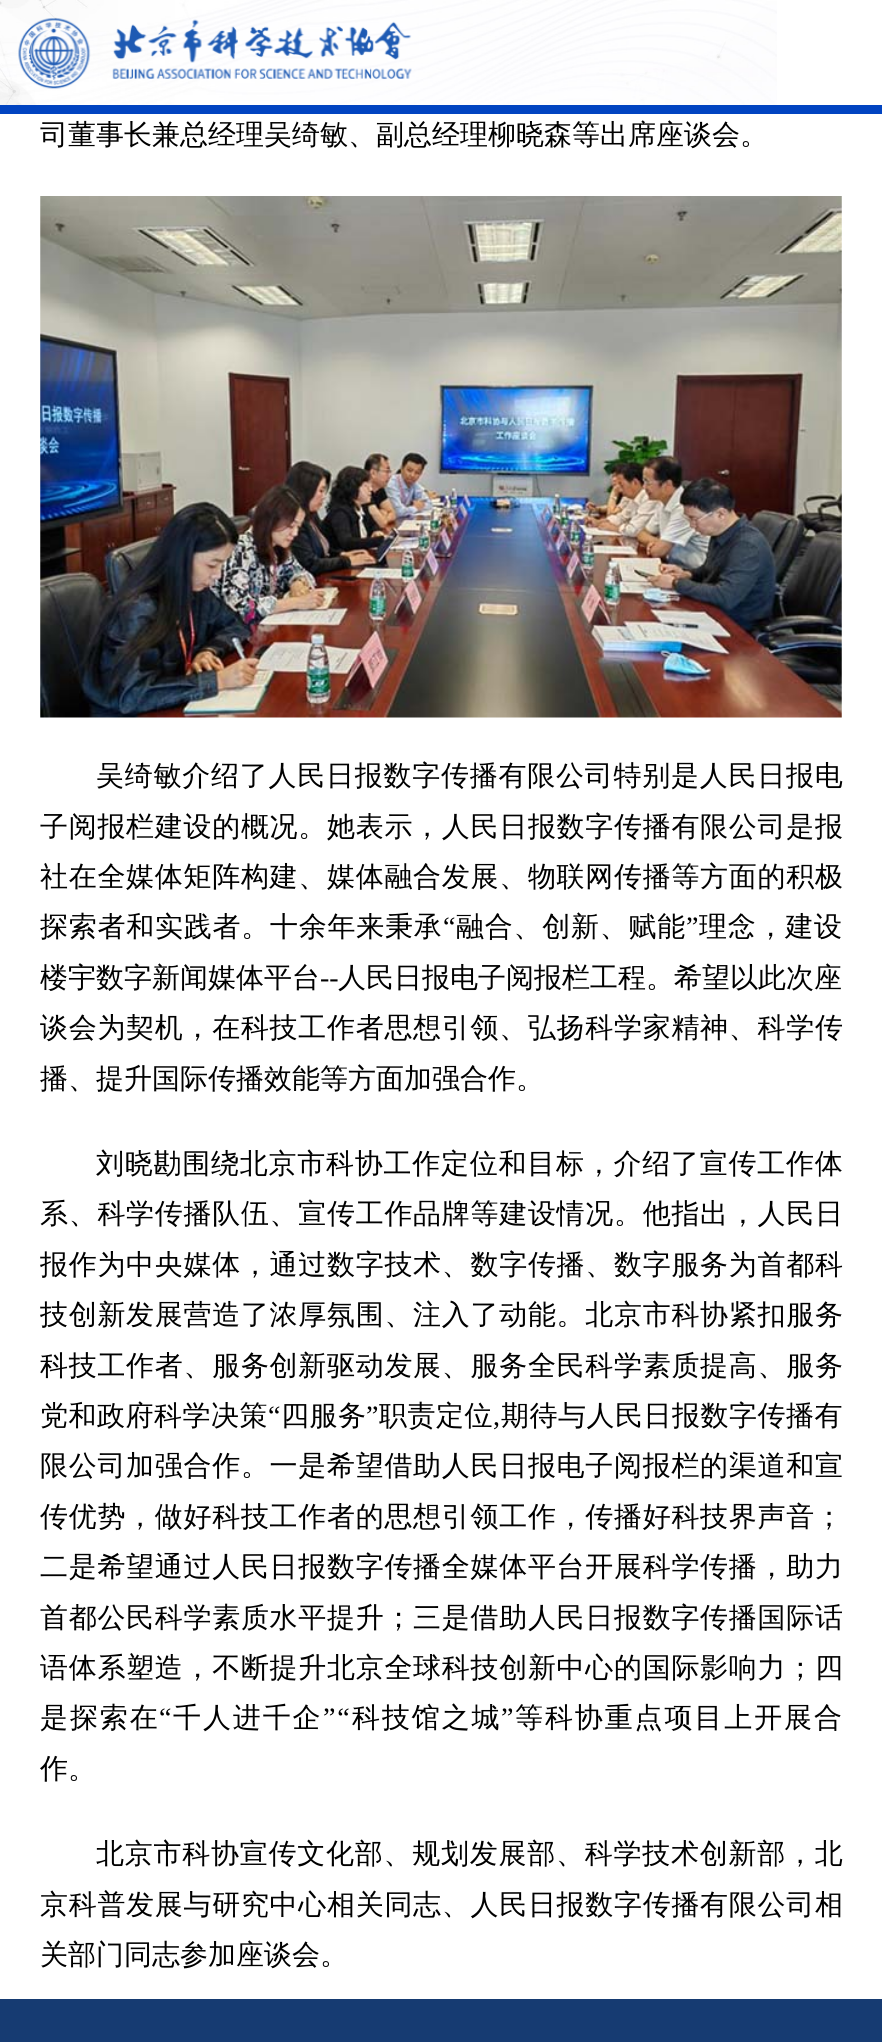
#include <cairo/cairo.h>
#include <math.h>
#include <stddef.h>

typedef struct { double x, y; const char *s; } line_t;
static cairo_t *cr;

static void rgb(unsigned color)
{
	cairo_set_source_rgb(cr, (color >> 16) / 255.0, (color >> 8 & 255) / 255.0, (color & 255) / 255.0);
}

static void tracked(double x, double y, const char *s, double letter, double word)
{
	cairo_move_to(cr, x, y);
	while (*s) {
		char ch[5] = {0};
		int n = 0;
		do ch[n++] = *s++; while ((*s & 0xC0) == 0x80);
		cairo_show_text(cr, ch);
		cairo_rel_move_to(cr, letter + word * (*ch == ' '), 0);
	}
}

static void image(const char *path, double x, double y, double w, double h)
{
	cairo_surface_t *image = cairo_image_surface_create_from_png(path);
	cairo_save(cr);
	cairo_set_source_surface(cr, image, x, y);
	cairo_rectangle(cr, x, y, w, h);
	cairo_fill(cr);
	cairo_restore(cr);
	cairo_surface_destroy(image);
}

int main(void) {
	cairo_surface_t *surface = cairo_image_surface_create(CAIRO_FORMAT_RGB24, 882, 2042);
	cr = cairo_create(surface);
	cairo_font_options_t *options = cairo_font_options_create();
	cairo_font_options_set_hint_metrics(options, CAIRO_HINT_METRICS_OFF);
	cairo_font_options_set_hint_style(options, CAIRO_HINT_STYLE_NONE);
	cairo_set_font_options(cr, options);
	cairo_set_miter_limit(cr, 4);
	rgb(0xffffff);
	cairo_paint(cr);
	image("img/1.png", 0, 0, 777, 105);
	rgb(0x0144c1);
	cairo_rectangle(cr, 0, 105, 882, 9);
	cairo_fill(cr);
	image("img/2.png", 18, 18, 394, 71);
	image("img/3.png", 40, 196, 802, 522);
	rgb(0x163b72);
	cairo_rectangle(cr, 0, 1999, 882, 43);
	cairo_fill(cr);
	cairo_select_font_face(cr, "WenQuanYi Zen Hei Medium", CAIRO_FONT_SLANT_NORMAL, CAIRO_FONT_WEIGHT_NORMAL);
	cairo_set_font_size(cr, 28);
	rgb(0x000000);
	cairo_move_to(cr, 40, 144);
	cairo_show_text(cr, "司董事长兼总经理吴绮敏、副总经理柳晓森等出席座谈会。");
	tracked(96, 785, "吴绮敏介绍了人民日报数字传播有限公司特别是人民日报电", 0.75, 0);
	tracked(40, 836, "子阅报栏建设的概况。她表示，人民日报数字传播有限公司是报", 0.7, 0);
	tracked(40, 886, "社在全媒体矩阵构建、媒体融合发展、物联网传播等方面的积极", 0.7, 0);
	tracked(40, 936, "探索者和实践者。十余年来秉承", 0.75, 0);
	cairo_select_font_face(cr, "Liberation Serif", CAIRO_FONT_SLANT_NORMAL, CAIRO_FONT_WEIGHT_NORMAL);
	tracked(443, 936, "“", 0.75, 0);
	cairo_select_font_face(cr, "WenQuanYi Zen Hei Medium", CAIRO_FONT_SLANT_NORMAL, CAIRO_FONT_WEIGHT_NORMAL);
	tracked(456, 936, "融合、创新、赋能", 0.75, 0);
	cairo_select_font_face(cr, "Liberation Serif", CAIRO_FONT_SLANT_NORMAL, CAIRO_FONT_WEIGHT_NORMAL);
	tracked(686, 936, "”", 0.75, 0);
	cairo_select_font_face(cr, "WenQuanYi Zen Hei Medium", CAIRO_FONT_SLANT_NORMAL, CAIRO_FONT_WEIGHT_NORMAL);
	tracked(699, 936, "理念，建设", 0.75, 0);
	cairo_move_to(cr, 40, 987);
	cairo_show_text(cr, "楼宇数字新闻媒体平台");
	cairo_select_font_face(cr, "Liberation Serif", CAIRO_FONT_SLANT_NORMAL, CAIRO_FONT_WEIGHT_NORMAL);
	cairo_move_to(cr, 320, 987);
	cairo_show_text(cr, "--");
	cairo_select_font_face(cr, "WenQuanYi Zen Hei Medium", CAIRO_FONT_SLANT_NORMAL, CAIRO_FONT_WEIGHT_NORMAL);
	cairo_move_to(cr, 338, 987);
	cairo_show_text(cr, "人民日报电子阅报栏工程。希望以此次座");
	tracked(40, 1037, "谈会为契机，在科技工作者思想引领、弘扬科学家精神、科学传", 0.7, 0);
	cairo_move_to(cr, 40, 1088);
	cairo_show_text(cr, "播、提升国际传播效能等方面加强合作。");
	tracked(96, 1173, "刘晓勘围绕北京市科协工作定位和目标，介绍了宣传工作体", 0.75, 0);
	{
		static const line_t items[] = {
			{40, 1223, "系、科学传播队伍、宣传工作品牌等建设情况。他指出，人民日"},
			{40, 1274, "报作为中央媒体，通过数字技术、数字传播、数字服务为首都科"},
			{40, 1324, "技创新发展营造了浓厚氛围、注入了动能。北京市科协紧扣服务"},
			{40, 1375, "科技工作者、服务创新驱动发展、服务全民科学素质提高、服务"},
		};
		for (size_t i = 0; i < sizeof items / sizeof *items; i++) {
			tracked(items[i].x, items[i].y, items[i].s, 0.7, 0);
		}
	}
	tracked(40, 1425, "党和政府科学决策", 0.5, 0);
	cairo_select_font_face(cr, "Liberation Serif", CAIRO_FONT_SLANT_NORMAL, CAIRO_FONT_WEIGHT_NORMAL);
	tracked(268, 1425, "“", 0.5, 0);
	cairo_select_font_face(cr, "WenQuanYi Zen Hei Medium", CAIRO_FONT_SLANT_NORMAL, CAIRO_FONT_WEIGHT_NORMAL);
	tracked(281, 1425, "四服务", 0.5, 0);
	cairo_select_font_face(cr, "Liberation Serif", CAIRO_FONT_SLANT_NORMAL, CAIRO_FONT_WEIGHT_NORMAL);
	tracked(366, 1425, "”", 0.5, 0);
	cairo_select_font_face(cr, "WenQuanYi Zen Hei Medium", CAIRO_FONT_SLANT_NORMAL, CAIRO_FONT_WEIGHT_NORMAL);
	tracked(379, 1425, "职责定位", 0.5, 0);
	tracked(501, 1425, "期待与人民日报数字传播有", 0.5, 0);
	cairo_select_font_face(cr, "Liberation Serif", CAIRO_FONT_SLANT_NORMAL, CAIRO_FONT_WEIGHT_NORMAL);
	tracked(493, 1425, ",", 0.5, 0);
	cairo_select_font_face(cr, "WenQuanYi Zen Hei Medium", CAIRO_FONT_SLANT_NORMAL, CAIRO_FONT_WEIGHT_NORMAL);
	{
		static const line_t items[] = {
			{40, 1475, "限公司加强合作。一是希望借助人民日报电子阅报栏的渠道和宣"},
			{40, 1526, "传优势，做好科技工作者的思想引领工作，传播好科技界声音；"},
			{40, 1576, "二是希望通过人民日报数字传播全媒体平台开展科学传播，助力"},
			{40, 1627, "首都公民科学素质水平提升；三是借助人民日报数字传播国际话"},
			{40, 1677, "语体系塑造，不断提升北京全球科技创新中心的国际影响力；四"},
		};
		for (size_t i = 0; i < sizeof items / sizeof *items; i++) {
			tracked(items[i].x, items[i].y, items[i].s, 0.7, 0);
		}
	}
	tracked(40, 1727, "是探索在", 1.9, 0);
	cairo_select_font_face(cr, "Liberation Serif", CAIRO_FONT_SLANT_NORMAL, CAIRO_FONT_WEIGHT_NORMAL);
	tracked(159, 1727, "“", 1.9, 0);
	cairo_select_font_face(cr, "WenQuanYi Zen Hei Medium", CAIRO_FONT_SLANT_NORMAL, CAIRO_FONT_WEIGHT_NORMAL);
	tracked(173, 1727, "千人进千企", 1.9, 0);
	cairo_select_font_face(cr, "Liberation Serif", CAIRO_FONT_SLANT_NORMAL, CAIRO_FONT_WEIGHT_NORMAL);
	tracked(323, 1727, "”“", 1.9, 0);
	cairo_select_font_face(cr, "WenQuanYi Zen Hei Medium", CAIRO_FONT_SLANT_NORMAL, CAIRO_FONT_WEIGHT_NORMAL);
	tracked(352, 1727, "科技馆之城", 1.9, 0);
	cairo_select_font_face(cr, "Liberation Serif", CAIRO_FONT_SLANT_NORMAL, CAIRO_FONT_WEIGHT_NORMAL);
	tracked(501, 1727, "”", 1.9, 0);
	cairo_select_font_face(cr, "WenQuanYi Zen Hei Medium", CAIRO_FONT_SLANT_NORMAL, CAIRO_FONT_WEIGHT_NORMAL);
	tracked(515, 1727, "等科协重点项目上开展合", 1.9, 0);
	cairo_move_to(cr, 40, 1778);
	cairo_show_text(cr, "作。");
	tracked(96, 1863, "北京市科协宣传文化部、规划发展部、科学技术创新部，北", 0.75, 0);
	tracked(40, 1914, "京科普发展与研究中心相关同志、人民日报数字传播有限公司相", 0.7, 0);
	cairo_move_to(cr, 40, 1964);
	cairo_show_text(cr, "关部门同志参加座谈会。");
	cairo_surface_write_to_png(surface, "page.png");
	cairo_font_options_destroy(options);
	cairo_destroy(cr);
	cairo_surface_destroy(surface);
	return 0;
}
